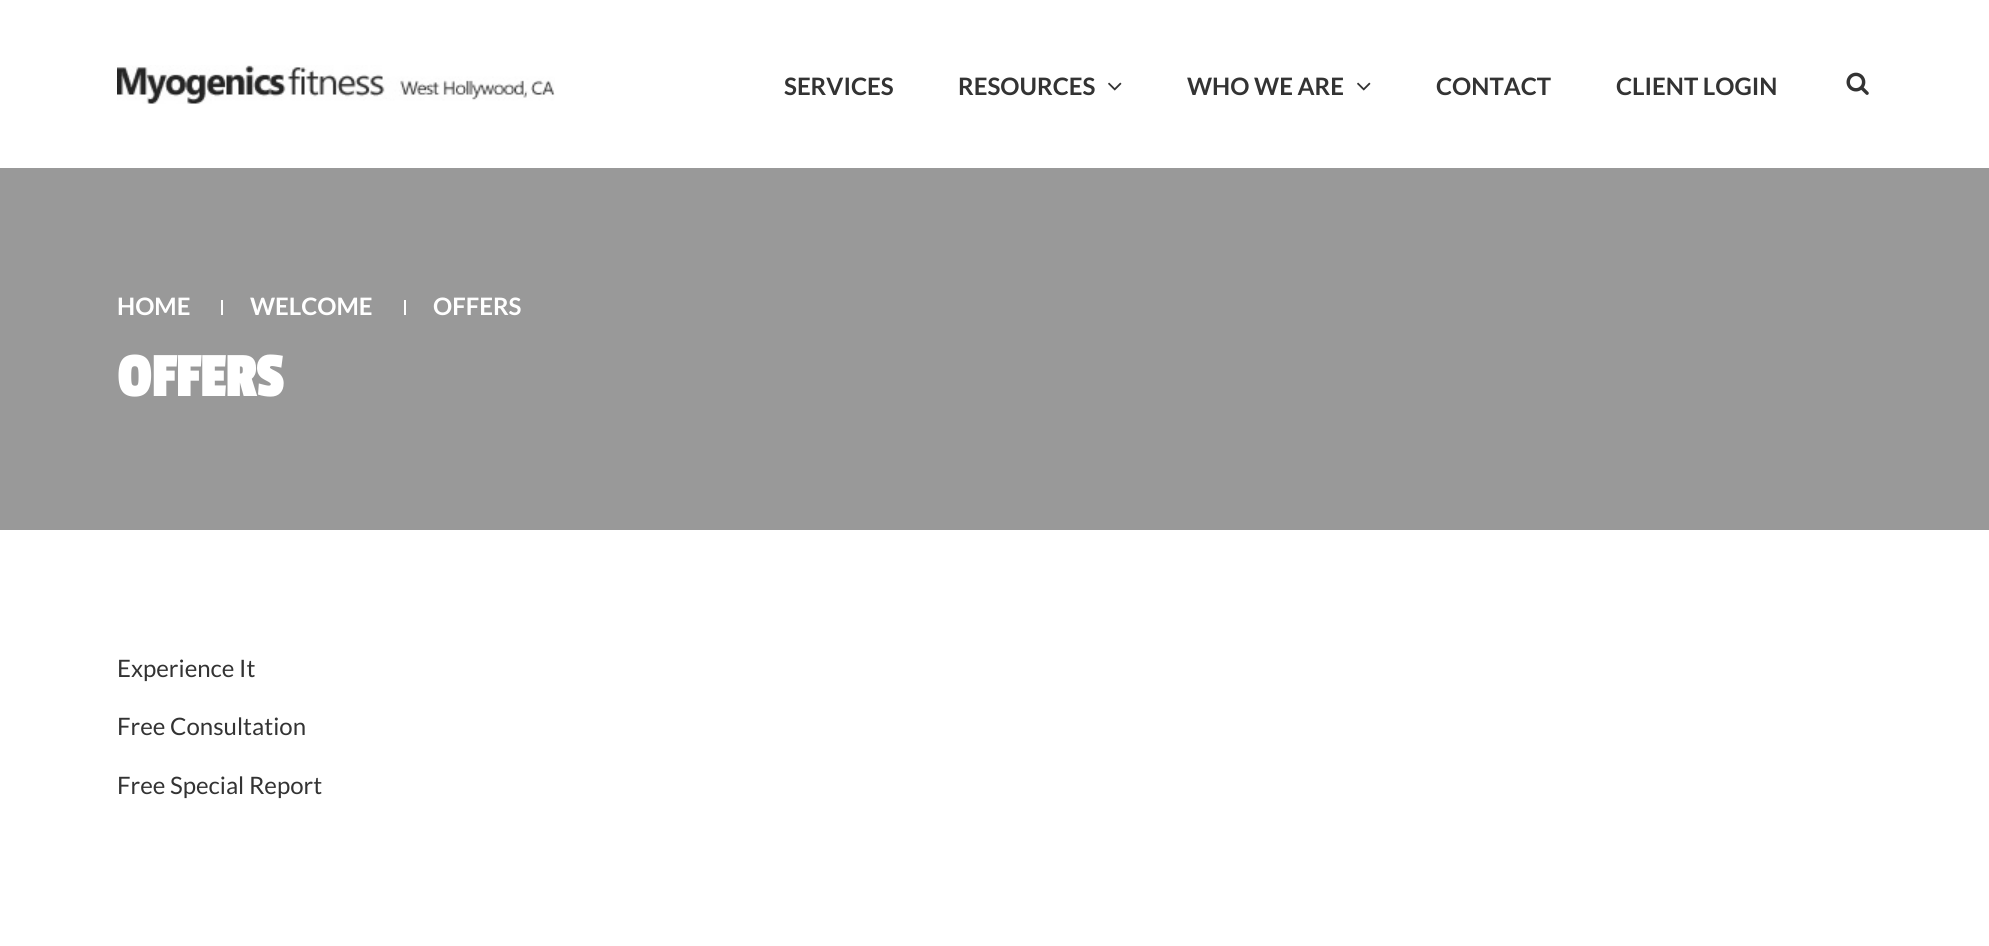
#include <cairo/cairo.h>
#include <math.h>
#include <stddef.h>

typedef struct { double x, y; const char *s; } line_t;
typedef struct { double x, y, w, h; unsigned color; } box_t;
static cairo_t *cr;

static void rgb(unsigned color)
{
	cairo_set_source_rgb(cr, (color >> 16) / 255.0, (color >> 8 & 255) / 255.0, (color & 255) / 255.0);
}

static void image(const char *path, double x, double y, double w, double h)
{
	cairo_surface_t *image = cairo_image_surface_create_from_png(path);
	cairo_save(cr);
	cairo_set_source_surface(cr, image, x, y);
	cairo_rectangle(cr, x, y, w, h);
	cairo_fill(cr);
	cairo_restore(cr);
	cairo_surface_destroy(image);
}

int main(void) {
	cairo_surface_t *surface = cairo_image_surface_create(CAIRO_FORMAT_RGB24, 1989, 946);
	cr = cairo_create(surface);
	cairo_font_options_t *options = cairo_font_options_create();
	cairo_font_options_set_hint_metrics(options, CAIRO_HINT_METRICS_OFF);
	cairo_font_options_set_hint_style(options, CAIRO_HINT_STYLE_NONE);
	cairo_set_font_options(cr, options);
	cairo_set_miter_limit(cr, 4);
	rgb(0xffffff);
	cairo_paint(cr);
	image("img/1.png", 117, 65, 438, 39);
	image("img/2.png", 1108, 82, 14, 9);
	image("img/2.png", 1357, 82, 14, 9);
	image("img/3.png", 1846, 72, 23, 23);
	{
		static const box_t items[] = {
			{0, 168, 1989, 362, 0x999999},
			{221, 300, 2, 15, 0xffffff},
			{404, 300, 2, 15, 0xffffff},
		};
		for (size_t i = 0; i < sizeof items / sizeof *items; i++) {
			rgb(items[i].color);
			cairo_rectangle(cr, items[i].x, items[i].y, items[i].w, items[i].h);
			cairo_fill(cr);
		}
	}
	cairo_select_font_face(cr, "Lato", CAIRO_FONT_SLANT_NORMAL, CAIRO_FONT_WEIGHT_BOLD);
	cairo_set_font_size(cr, 24);
	rgb(0x333333);
	{
		static const line_t items[] = {
			{784, 95, "SERVICES"},
			{958, 95, "RESOURCES"},
			{1187, 95, "WHO WE ARE"},
			{1436, 95, "CONTACT"},
			{1616, 95, "CLIENT LOGIN"},
		};
		for (size_t i = 0; i < sizeof items / sizeof *items; i++) {
			cairo_move_to(cr, items[i].x, items[i].y);
			cairo_show_text(cr, items[i].s);
		}
	}
	rgb(0xffffff);
	{
		static const line_t items[] = {
			{117, 315, "HOME"},
			{250, 315, "WELCOME"},
			{433, 315, "OFFERS"},
		};
		for (size_t i = 0; i < sizeof items / sizeof *items; i++) {
			cairo_move_to(cr, items[i].x, items[i].y);
			cairo_show_text(cr, items[i].s);
		}
	}
	cairo_select_font_face(cr, "Passion One", CAIRO_FONT_SLANT_NORMAL, CAIRO_FONT_WEIGHT_BOLD);
	cairo_set_font_size(cr, 63);
	cairo_move_to(cr, 117, 396);
	cairo_show_text(cr, "OFFERS");
	cairo_select_font_face(cr, "Lato", CAIRO_FONT_SLANT_NORMAL, CAIRO_FONT_WEIGHT_NORMAL);
	cairo_set_font_size(cr, 24);
	rgb(0x333333);
	{
		static const line_t items[] = {
			{117, 677, "Experience It"},
			{117, 735, "Free Consultation"},
			{117, 794, "Free Special Report"},
		};
		for (size_t i = 0; i < sizeof items / sizeof *items; i++) {
			cairo_move_to(cr, items[i].x, items[i].y);
			cairo_show_text(cr, items[i].s);
		}
	}
	cairo_surface_write_to_png(surface, "page.png");
	cairo_font_options_destroy(options);
	cairo_destroy(cr);
	cairo_surface_destroy(surface);
	return 0;
}
